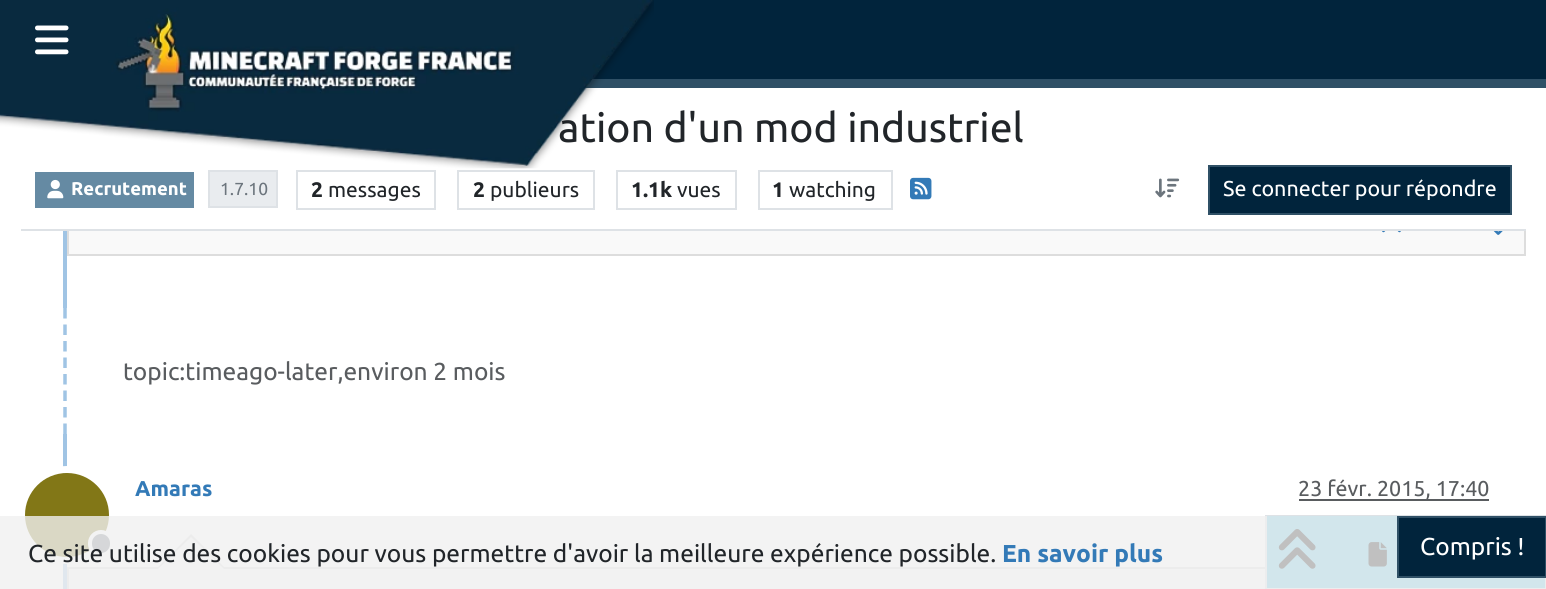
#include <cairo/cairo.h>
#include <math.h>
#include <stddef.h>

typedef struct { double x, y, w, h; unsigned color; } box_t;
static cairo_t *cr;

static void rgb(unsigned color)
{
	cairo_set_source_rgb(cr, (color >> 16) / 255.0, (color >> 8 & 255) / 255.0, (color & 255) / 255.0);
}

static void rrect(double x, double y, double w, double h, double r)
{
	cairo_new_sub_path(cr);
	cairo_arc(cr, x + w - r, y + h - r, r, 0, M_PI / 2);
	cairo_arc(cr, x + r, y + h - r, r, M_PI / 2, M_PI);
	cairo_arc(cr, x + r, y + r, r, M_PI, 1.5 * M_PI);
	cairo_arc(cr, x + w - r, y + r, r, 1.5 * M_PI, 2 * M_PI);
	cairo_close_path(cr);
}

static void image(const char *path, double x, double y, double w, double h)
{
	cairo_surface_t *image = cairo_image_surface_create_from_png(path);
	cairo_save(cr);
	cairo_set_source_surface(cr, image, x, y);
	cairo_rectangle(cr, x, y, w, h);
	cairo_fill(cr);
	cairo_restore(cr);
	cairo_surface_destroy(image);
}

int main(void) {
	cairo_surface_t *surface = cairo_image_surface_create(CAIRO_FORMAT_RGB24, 1546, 589);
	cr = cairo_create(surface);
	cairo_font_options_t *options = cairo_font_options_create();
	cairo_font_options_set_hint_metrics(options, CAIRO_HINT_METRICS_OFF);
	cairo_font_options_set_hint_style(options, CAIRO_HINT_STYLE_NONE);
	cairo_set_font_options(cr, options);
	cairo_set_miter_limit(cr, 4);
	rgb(0xffffff);
	cairo_paint(cr);
	{
		static const box_t items[] = {
			{592, 0, 954, 79, 0x01243c},
			{584, 79, 962, 9, 0x2f5066},
			{21, 229, 1505, 2, 0xdee2e6},
			{35, 172, 159, 36, 0x658aa3},
		};
		for (size_t i = 0; i < sizeof items / sizeof *items; i++) {
			rgb(items[i].color);
			cairo_rectangle(cr, items[i].x, items[i].y, items[i].w, items[i].h);
			cairo_fill(cr);
		}
	}
	image("img/3.png", 47, 179, 17, 20);
	rgb(0xe9ecef);
	cairo_rectangle(cr, 209, 171, 68, 36);
	cairo_fill_preserve(cr);
	rgb(0xdee2e6);
	cairo_stroke(cr);
	cairo_rectangle(cr, 297, 171, 138, 38);
	cairo_stroke(cr);
	cairo_rectangle(cr, 458, 171, 136, 38);
	cairo_stroke(cr);
	cairo_rectangle(cr, 617, 171, 119, 38);
	cairo_stroke(cr);
	cairo_rectangle(cr, 759, 171, 133, 38);
	cairo_stroke(cr);
	image("img/4.png", 910, 177, 22, 23);
	image("img/5.png", 1155, 178, 25, 20);
	rgb(0x01243c);
	cairo_rectangle(cr, 1209, 166, 302, 48);
	cairo_fill_preserve(cr);
	rgb(0x2f5066);
	cairo_stroke(cr);
	{
		static const box_t items[] = {
			{63, 231, 4, 77, 0xa0c4e4},
			{69, 231, 1455, 23, 0xf9f9f9},
			{1524, 231, 2, 25, 0xdddddd},
			{67, 254, 1459, 2, 0xdddddd},
			{67, 231, 2, 25, 0xdddddd},
		};
		for (size_t i = 0; i < sizeof items / sizeof *items; i++) {
			rgb(items[i].color);
			cairo_rectangle(cr, items[i].x, items[i].y, items[i].w, items[i].h);
			cairo_fill(cr);
		}
	}
	image("img/6.png", 1382, 231, 19, 2);
	image("img/7.png", 1493, 231, 10, 4);
	cairo_new_path(cr);
	cairo_move_to(cr, 65, 308);
	cairo_line_to(cr, 65, 434);
	rgb(0xa0c4e4);
	cairo_set_line_width(cr, 3.5);
	cairo_set_dash(cr, (double[]){10.5, 6}, 2, 0);
	cairo_stroke(cr);
	cairo_rectangle(cr, 63, 434, 4, 155);
	cairo_fill(cr);
	cairo_arc(cr, 67, 515, 45.5, 0, 2 * M_PI);
	rgb(0xffffff);
	cairo_set_line_width(cr, 7);
	cairo_set_dash(cr, NULL, 0, 0);
	cairo_stroke(cr);
	rgb(0x827717);
	cairo_arc(cr, 67, 515, 42, 0, 2 * M_PI);
	cairo_fill(cr);
	rgb(0x6c757d);
	rrect(90, 532, 22, 23, 11);
	cairo_fill_preserve(cr);
	rgb(0xffffff);
	cairo_set_line_width(cr, 4);
	cairo_stroke(cr);
	{
		static const box_t items[] = {
			{1299, 499, 190, 2, 0x595c5f},
			{69, 569, 1196, 20, 0xf9f9f9},
			{67, 567, 1198, 2, 0xdddddd},
			{67, 567, 2, 22, 0xdddddd},
		};
		for (size_t i = 0; i < sizeof items / sizeof *items; i++) {
			rgb(items[i].color);
			cairo_rectangle(cr, items[i].x, items[i].y, items[i].w, items[i].h);
			cairo_fill(cr);
		}
	}
	cairo_new_path(cr);
	cairo_move_to(cr, 226, 569);
	cairo_line_to(cr, 156, 569);
	cairo_line_to(cr, 191, 534);
	cairo_close_path(cr);
	cairo_fill(cr);
	rgb(0xf9f9f9);
	cairo_new_path(cr);
	cairo_move_to(cr, 224, 569);
	cairo_line_to(cr, 158, 569);
	cairo_line_to(cr, 191, 537);
	cairo_close_path(cr);
	cairo_fill(cr);
	cairo_rectangle(cr, 1266, 516, 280, 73);
	rgb(0xdee2e6);
	cairo_set_line_width(cr, 2);
	cairo_stroke(cr);
	rgb(0x5bc0de);
	cairo_rectangle(cr, 1267, 516, 278, 72);
	cairo_fill(cr);
	image("img/8.png", 1278, 529, 38, 40);
	image("img/9.png", 1368, 542, 19, 25);
	cairo_set_source_rgba(cr, 0.941, 0.941, 0.941, 0.8);
	cairo_rectangle(cr, 0, 516, 1546, 73);
	cairo_fill(cr);
	rgb(0x01243c);
	cairo_rectangle(cr, 1398, 517, 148, 60);
	cairo_fill_preserve(cr);
	rgb(0x2f5066);
	cairo_stroke(cr);
	cairo_select_font_face(cr, "Ubuntu", CAIRO_FONT_SLANT_NORMAL, CAIRO_FONT_WEIGHT_NORMAL);
	cairo_set_font_size(cr, 41);
	rgb(0x212529);
	cairo_move_to(cr, 558, 142);
	cairo_show_text(cr, "ation d'un mod industriel");
	image("img/1.png", 0, 0, 654, 169);
	image("img/2.png", 35, 25, 34, 30);
	cairo_select_font_face(cr, "Ubuntu", CAIRO_FONT_SLANT_NORMAL, CAIRO_FONT_WEIGHT_BOLD);
	cairo_set_font_size(cr, 18.5);
	rgb(0xffffff);
	cairo_move_to(cr, 71, 195);
	cairo_show_text(cr, "Recrutement");
	cairo_select_font_face(cr, "Ubuntu", CAIRO_FONT_SLANT_NORMAL, CAIRO_FONT_WEIGHT_NORMAL);
	cairo_set_font_size(cr, 17.5);
	rgb(0x6c757d);
	cairo_move_to(cr, 220, 195);
	cairo_show_text(cr, "1.7.10");
	cairo_select_font_face(cr, "Ubuntu", CAIRO_FONT_SLANT_NORMAL, CAIRO_FONT_WEIGHT_BOLD);
	cairo_set_font_size(cr, 21);
	rgb(0x212529);
	cairo_move_to(cr, 311, 197);
	cairo_show_text(cr, "2");
	cairo_select_font_face(cr, "Ubuntu", CAIRO_FONT_SLANT_NORMAL, CAIRO_FONT_WEIGHT_NORMAL);
	cairo_move_to(cr, 328, 197);
	cairo_show_text(cr, "messages");
	cairo_select_font_face(cr, "Ubuntu", CAIRO_FONT_SLANT_NORMAL, CAIRO_FONT_WEIGHT_BOLD);
	cairo_move_to(cr, 473, 197);
	cairo_show_text(cr, "2");
	cairo_select_font_face(cr, "Ubuntu", CAIRO_FONT_SLANT_NORMAL, CAIRO_FONT_WEIGHT_NORMAL);
	cairo_move_to(cr, 490, 197);
	cairo_show_text(cr, "publieurs");
	cairo_select_font_face(cr, "Ubuntu", CAIRO_FONT_SLANT_NORMAL, CAIRO_FONT_WEIGHT_BOLD);
	cairo_move_to(cr, 631, 197);
	cairo_show_text(cr, "1.1k");
	cairo_select_font_face(cr, "Ubuntu", CAIRO_FONT_SLANT_NORMAL, CAIRO_FONT_WEIGHT_NORMAL);
	cairo_move_to(cr, 677, 197);
	cairo_show_text(cr, "vues");
	cairo_select_font_face(cr, "Ubuntu", CAIRO_FONT_SLANT_NORMAL, CAIRO_FONT_WEIGHT_BOLD);
	cairo_move_to(cr, 772, 197);
	cairo_show_text(cr, "1");
	cairo_select_font_face(cr, "Ubuntu", CAIRO_FONT_SLANT_NORMAL, CAIRO_FONT_WEIGHT_NORMAL);
	cairo_move_to(cr, 789, 197);
	cairo_show_text(cr, "watching");
	cairo_set_font_size(cr, 21.5);
	rgb(0xffffff);
	cairo_move_to(cr, 1223, 196);
	cairo_show_text(cr, "Se connecter pour répondre");
	cairo_set_font_size(cr, 24.5);
	rgb(0x595c5f);
	cairo_move_to(cr, 123, 380);
	cairo_show_text(cr, "topic:timeago-later,environ 2 mois");
	cairo_select_font_face(cr, "Ubuntu", CAIRO_FONT_SLANT_NORMAL, CAIRO_FONT_WEIGHT_BOLD);
	cairo_set_font_size(cr, 21.5);
	rgb(0x337ab7);
	cairo_move_to(cr, 135, 496);
	cairo_show_text(cr, "Amaras");
	cairo_select_font_face(cr, "Ubuntu", CAIRO_FONT_SLANT_NORMAL, CAIRO_FONT_WEIGHT_NORMAL);
	rgb(0x595c5f);
	cairo_move_to(cr, 1298, 496);
	cairo_show_text(cr, "23 févr. 2015, 17:40");
	cairo_set_font_size(cr, 24.5);
	rgb(0x212529);
	cairo_move_to(cr, 28, 562);
	cairo_show_text(cr, "Ce site utilise des cookies pour vous permettre d'avoir la meilleure expérience possible.");
	cairo_select_font_face(cr, "Ubuntu", CAIRO_FONT_SLANT_NORMAL, CAIRO_FONT_WEIGHT_BOLD);
	rgb(0x337ab7);
	cairo_move_to(cr, 1002, 562);
	cairo_show_text(cr, "En savoir plus");
	cairo_select_font_face(cr, "Ubuntu", CAIRO_FONT_SLANT_NORMAL, CAIRO_FONT_WEIGHT_NORMAL);
	rgb(0xffffff);
	cairo_move_to(cr, 1420, 555);
	cairo_show_text(cr, "Compris !");
	cairo_surface_write_to_png(surface, "page.png");
	cairo_font_options_destroy(options);
	cairo_destroy(cr);
	cairo_surface_destroy(surface);
	return 0;
}
